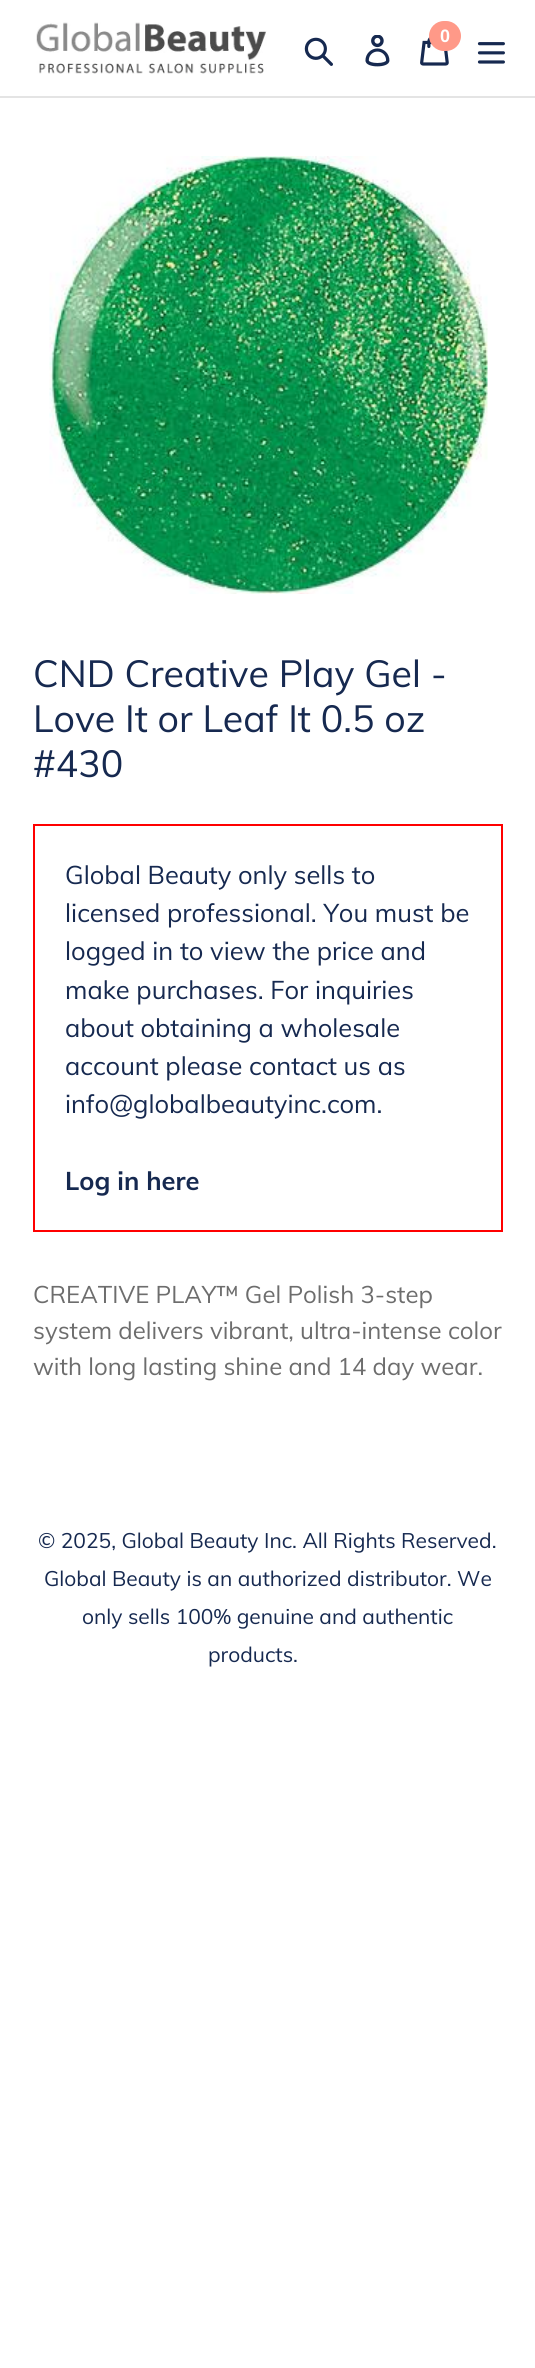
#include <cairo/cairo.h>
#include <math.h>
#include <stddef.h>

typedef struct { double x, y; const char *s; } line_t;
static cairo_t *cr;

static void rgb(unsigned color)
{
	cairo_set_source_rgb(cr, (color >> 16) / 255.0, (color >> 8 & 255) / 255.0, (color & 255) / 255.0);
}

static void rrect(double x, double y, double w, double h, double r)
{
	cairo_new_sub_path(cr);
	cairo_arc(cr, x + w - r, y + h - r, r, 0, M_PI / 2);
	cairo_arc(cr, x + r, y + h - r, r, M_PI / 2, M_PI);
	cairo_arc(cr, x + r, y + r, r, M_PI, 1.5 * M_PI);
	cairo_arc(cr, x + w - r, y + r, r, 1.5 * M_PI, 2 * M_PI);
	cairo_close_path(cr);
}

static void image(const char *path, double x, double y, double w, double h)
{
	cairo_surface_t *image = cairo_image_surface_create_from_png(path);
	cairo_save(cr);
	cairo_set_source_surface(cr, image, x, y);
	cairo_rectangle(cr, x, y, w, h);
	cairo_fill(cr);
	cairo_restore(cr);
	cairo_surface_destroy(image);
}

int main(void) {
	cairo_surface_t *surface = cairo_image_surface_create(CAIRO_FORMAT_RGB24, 535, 2368);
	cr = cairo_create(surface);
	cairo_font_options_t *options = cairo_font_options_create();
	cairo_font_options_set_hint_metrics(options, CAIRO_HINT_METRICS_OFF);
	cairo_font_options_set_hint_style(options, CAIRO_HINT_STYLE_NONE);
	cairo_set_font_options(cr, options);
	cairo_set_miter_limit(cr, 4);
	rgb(0xffffff);
	cairo_paint(cr);
	rgb(0xe4e4e4);
	cairo_rectangle(cr, 0, 96, 535, 2);
	cairo_fill(cr);
	image("img/1.png", 36, 22, 231, 52);
	image("img/2.png", 304, 37, 29, 29);
	image("img/3.png", 365, 35, 25, 32);
	image("img/4.png", 420, 36, 29, 30);
	rgb(0xff9988);
	rrect(429, 21, 32, 30, 15);
	cairo_fill(cr);
	image("img/5.png", 477, 42, 28, 22);
	image("img/6.png", 49, 156, 439, 438);
	cairo_rectangle(cr, 34, 825, 468, 406);
	rgb(0xff0000);
	cairo_stroke(cr);
	cairo_select_font_face(cr, "Liberation Sans", CAIRO_FONT_SLANT_NORMAL, CAIRO_FONT_WEIGHT_BOLD);
	cairo_set_font_size(cr, 18);
	rgb(0xffffff);
	cairo_move_to(cr, 440, 42);
	cairo_show_text(cr, "0");
	cairo_select_font_face(cr, "Muli", CAIRO_FONT_SLANT_NORMAL, CAIRO_FONT_WEIGHT_NORMAL);
	cairo_set_font_size(cr, 37.5);
	rgb(0x162950);
	{
		static const line_t items[] = {
			{33, 687, "CND Creative Play Gel -"},
			{33, 732, "Love It or Leaf It 0.5 oz"},
			{33, 777, "#430"},
		};
		for (size_t i = 0; i < sizeof items / sizeof *items; i++) {
			cairo_move_to(cr, items[i].x, items[i].y);
			cairo_show_text(cr, items[i].s);
		}
	}
	cairo_set_font_size(cr, 25.5);
	{
		static const line_t items[] = {
			{65, 884, "Global Beauty only sells to"},
			{65, 922, "licensed professional. You must be"},
			{65, 960, "logged in to view the price and"},
			{65, 999, "make purchases. For inquiries"},
			{65, 1037, "about obtaining a wholesale"},
			{65, 1075, "account please contact us as"},
			{65, 1113, "info@globalbeautyinc.com."},
		};
		for (size_t i = 0; i < sizeof items / sizeof *items; i++) {
			cairo_move_to(cr, items[i].x, items[i].y);
			cairo_show_text(cr, items[i].s);
		}
	}
	cairo_select_font_face(cr, "Muli", CAIRO_FONT_SLANT_NORMAL, CAIRO_FONT_WEIGHT_BOLD);
	cairo_move_to(cr, 65, 1190);
	cairo_show_text(cr, "Log in here");
	cairo_select_font_face(cr, "Muli", CAIRO_FONT_SLANT_NORMAL, CAIRO_FONT_WEIGHT_NORMAL);
	cairo_set_font_size(cr, 24);
	rgb(0x6d6d6d);
	{
		static const line_t items[] = {
			{33, 1303, "CREATIVE PLAY™ Gel Polish 3-step"},
			{33, 1339, "system delivers vibrant, ultra-intense color"},
			{33, 1375, "with long lasting shine and 14 day wear."},
		};
		for (size_t i = 0; i < sizeof items / sizeof *items; i++) {
			cairo_move_to(cr, items[i].x, items[i].y);
			cairo_show_text(cr, items[i].s);
		}
	}
	cairo_set_font_size(cr, 21);
	rgb(0x162950);
	{
		static const line_t items[] = {
			{38, 1548, "© 2025, Global Beauty Inc. All Rights Reserved."},
			{44, 1586, "Global Beauty is an authorized distributor. We"},
			{82, 1624, "only sells 100% genuine and authentic"},
			{208, 1662, "products."},
		};
		for (size_t i = 0; i < sizeof items / sizeof *items; i++) {
			cairo_move_to(cr, items[i].x, items[i].y);
			cairo_show_text(cr, items[i].s);
		}
	}
	cairo_surface_write_to_png(surface, "page.png");
	cairo_font_options_destroy(options);
	cairo_destroy(cr);
	cairo_surface_destroy(surface);
	return 0;
}
